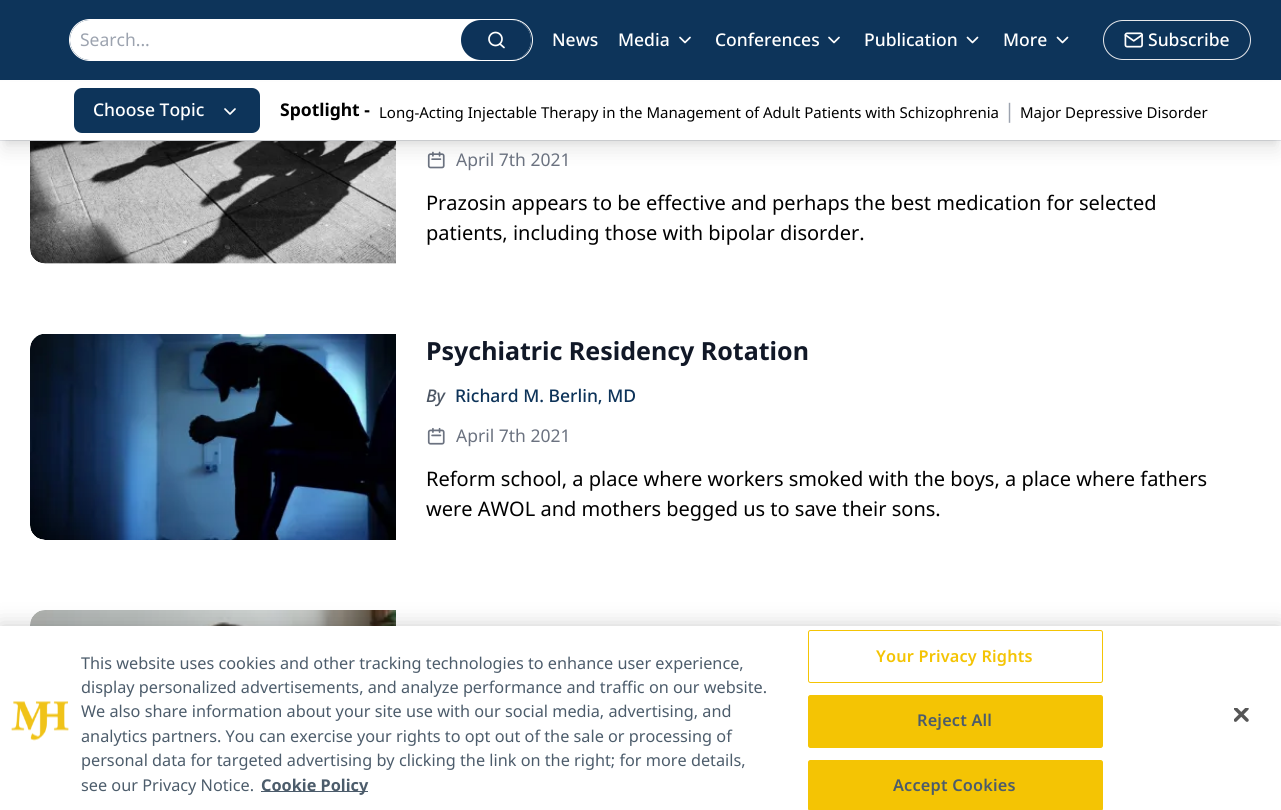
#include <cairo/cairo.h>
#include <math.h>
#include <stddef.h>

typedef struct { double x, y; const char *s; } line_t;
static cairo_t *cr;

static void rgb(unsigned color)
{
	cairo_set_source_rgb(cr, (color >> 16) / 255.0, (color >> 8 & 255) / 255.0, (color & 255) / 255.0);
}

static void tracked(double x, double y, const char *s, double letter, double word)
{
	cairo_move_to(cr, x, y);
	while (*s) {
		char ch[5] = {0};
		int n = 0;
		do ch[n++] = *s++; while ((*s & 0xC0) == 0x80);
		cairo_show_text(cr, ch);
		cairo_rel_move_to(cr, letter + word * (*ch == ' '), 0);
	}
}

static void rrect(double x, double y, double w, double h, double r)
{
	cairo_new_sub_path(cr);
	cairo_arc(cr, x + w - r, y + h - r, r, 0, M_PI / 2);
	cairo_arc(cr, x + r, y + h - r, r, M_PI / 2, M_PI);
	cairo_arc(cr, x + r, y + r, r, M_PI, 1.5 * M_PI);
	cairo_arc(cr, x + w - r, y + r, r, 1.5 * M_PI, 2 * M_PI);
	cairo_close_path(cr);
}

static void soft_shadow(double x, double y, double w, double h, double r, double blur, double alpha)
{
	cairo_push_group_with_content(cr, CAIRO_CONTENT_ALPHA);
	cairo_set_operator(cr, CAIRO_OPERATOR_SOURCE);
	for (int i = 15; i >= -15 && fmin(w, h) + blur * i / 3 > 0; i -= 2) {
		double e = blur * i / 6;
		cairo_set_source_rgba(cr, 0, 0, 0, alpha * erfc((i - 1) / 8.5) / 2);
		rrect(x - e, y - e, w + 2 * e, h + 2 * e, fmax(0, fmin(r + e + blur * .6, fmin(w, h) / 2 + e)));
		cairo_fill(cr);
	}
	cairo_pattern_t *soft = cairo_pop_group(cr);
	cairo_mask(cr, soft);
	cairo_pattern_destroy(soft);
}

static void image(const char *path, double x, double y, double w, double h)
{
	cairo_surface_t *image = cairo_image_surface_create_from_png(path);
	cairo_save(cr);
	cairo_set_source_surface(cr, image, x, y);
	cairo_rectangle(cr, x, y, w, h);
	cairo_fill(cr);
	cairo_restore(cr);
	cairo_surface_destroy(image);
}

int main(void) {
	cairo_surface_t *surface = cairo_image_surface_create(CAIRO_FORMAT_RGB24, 1281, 810);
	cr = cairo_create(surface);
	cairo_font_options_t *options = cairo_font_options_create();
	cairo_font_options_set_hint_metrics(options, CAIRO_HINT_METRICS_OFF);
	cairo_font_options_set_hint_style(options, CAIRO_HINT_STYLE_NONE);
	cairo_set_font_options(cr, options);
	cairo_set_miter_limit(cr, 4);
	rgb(0xffffff);
	cairo_paint(cr);
	rgb(0x0d345a);
	cairo_rectangle(cr, 0, 0, 1281, 80);
	cairo_fill(cr);
	rgb(0xe5e7eb);
	cairo_rectangle(cr, 0, 140, 1281, 1);
	cairo_fill(cr);
	rrect(69.5, 19.5, 463, 41, 20.5);
	rgb(0xffffff);
	cairo_set_line_width(cr, 1);
	cairo_stroke(cr);
	rrect(70, 20, 461, 40, 20);
	cairo_fill(cr);
	rgb(0x0d3359);
	rrect(461, 20, 70, 40, 20);
	cairo_fill(cr);
	cairo_arc(cr, 495.5, 39, 6.5, 0, 2 * M_PI);
	rgb(0xffffff);
	cairo_set_line_width(cr, 1.7);
	cairo_stroke(cr);
	cairo_new_path(cr);
	cairo_move_to(cr, 504, 47.5);
	cairo_line_to(cr, 500, 44);
	cairo_set_line_cap(cr, CAIRO_LINE_CAP_ROUND);
	cairo_set_line_join(cr, CAIRO_LINE_JOIN_ROUND);
	cairo_stroke(cr);
	cairo_new_path(cr);
	cairo_move_to(cr, 680, 37.5);
	cairo_line_to(cr, 685, 42.5);
	cairo_line_to(cr, 690, 37.5);
	cairo_stroke(cr);
	cairo_new_path(cr);
	cairo_move_to(cr, 829, 37.5);
	cairo_line_to(cr, 834, 42.5);
	cairo_line_to(cr, 839, 37.5);
	cairo_stroke(cr);
	cairo_new_path(cr);
	cairo_move_to(cr, 967.5, 37.5);
	cairo_line_to(cr, 972.5, 42.5);
	cairo_line_to(cr, 977.5, 37.5);
	cairo_stroke(cr);
	cairo_new_path(cr);
	cairo_move_to(cr, 1057.5, 37.5);
	cairo_line_to(cr, 1062.5, 42.5);
	cairo_line_to(cr, 1067.5, 37.5);
	cairo_stroke(cr);
	rrect(1103.5, 20.5, 147, 39, 19.5);
	rgb(0xe5e7eb);
	cairo_set_line_width(cr, 1);
	cairo_set_line_cap(cr, CAIRO_LINE_CAP_BUTT);
	cairo_set_line_join(cr, CAIRO_LINE_JOIN_MITER);
	cairo_stroke(cr);
	image("img/1.png", 1124, 32, 19, 16);
	image("img/2.png", 30, 141, 366, 123);
	image("img/3.png", 427, 151, 18, 18);
	rgb(0x000000);
	soft_shadow(5, 90, 1271, 50, 0, 4, 0.1);
	soft_shadow(4, 96, 1274, 53, 0, 9.5, 0.1);
	rgb(0xffffff);
	cairo_rectangle(cr, 0, 82, 1281, 58);
	cairo_fill(cr);
	rgb(0x0d345a);
	rrect(74, 88, 186, 45, 8);
	cairo_fill(cr);
	cairo_new_path(cr);
	cairo_move_to(cr, 225, 109);
	cairo_line_to(cr, 230, 114);
	cairo_line_to(cr, 235, 109);
	rgb(0xffffff);
	cairo_set_line_width(cr, 1.7);
	cairo_set_line_cap(cr, CAIRO_LINE_CAP_ROUND);
	cairo_set_line_join(cr, CAIRO_LINE_JOIN_ROUND);
	cairo_stroke(cr);
	image("img/4.png", 30, 334, 366, 206);
	image("img/5.png", 427, 427, 18, 18);
	image("img/6.png", 30, 610, 366, 16);
	rgb(0x000000);
	soft_shadow(0, 626, 1281, 184, 0, 11, 0.2);
	rgb(0xffffff);
	cairo_rectangle(cr, 0, 626, 1281, 184);
	cairo_fill(cr);
	image("img/7.png", 11, 701, 58, 40);
	rgb(0x4c5c6b);
	cairo_rectangle(cr, 261, 791, 107, 1);
	cairo_fill(cr);
	rrect(808.5, 630.5, 294, 52, 2);
	rgb(0xf4c404);
	cairo_set_line_width(cr, 1);
	cairo_set_line_cap(cr, CAIRO_LINE_CAP_BUTT);
	cairo_set_line_join(cr, CAIRO_LINE_JOIN_MITER);
	cairo_stroke(cr);
	rrect(808.5, 695.5, 294, 52, 2);
	cairo_fill_preserve(cr);
	cairo_stroke(cr);
	rrect(808.5, 760.5, 294, 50, 2);
	cairo_fill_preserve(cr);
	cairo_stroke(cr);
	image("img/8.png", 1234, 708, 15, 14);
	cairo_select_font_face(cr, "Noto Sans", CAIRO_FONT_SLANT_NORMAL, CAIRO_FONT_WEIGHT_NORMAL);
	cairo_set_font_size(cr, 17.5);
	rgb(0x9ca3af);
	cairo_move_to(cr, 80, 46);
	cairo_show_text(cr, "Search...");
	cairo_select_font_face(cr, "Noto Sans Medium", CAIRO_FONT_SLANT_NORMAL, CAIRO_FONT_WEIGHT_NORMAL);
	rgb(0xffffff);
	{
		static const line_t items[] = {
			{552, 46, "News"},
			{618, 46, "Media"},
			{715, 46, "Conferences"},
			{864, 46, "Publication"},
			{1003, 46, "More"},
			{1148, 46, "Subscribe"},
			{93, 116, "Choose Topic"},
		};
		for (size_t i = 0; i < sizeof items / sizeof *items; i++) {
			cairo_move_to(cr, items[i].x, items[i].y);
			cairo_show_text(cr, items[i].s);
		}
	}
	cairo_select_font_face(cr, "Noto Sans", CAIRO_FONT_SLANT_NORMAL, CAIRO_FONT_WEIGHT_BOLD);
	rgb(0x000000);
	cairo_move_to(cr, 280, 116);
	cairo_show_text(cr, "Spotlight -");
	cairo_select_font_face(cr, "Noto Sans", CAIRO_FONT_SLANT_NORMAL, CAIRO_FONT_WEIGHT_NORMAL);
	cairo_set_font_size(cr, 15);
	cairo_move_to(cr, 379, 118);
	cairo_show_text(cr, "Long-Acting Injectable Therapy in the Management of Adult Patients with Schizophrenia");
	cairo_set_font_size(cr, 20);
	rgb(0x9ca3af);
	cairo_move_to(cr, 1004, 118);
	cairo_show_text(cr, "|");
	cairo_set_font_size(cr, 15);
	rgb(0x000000);
	cairo_move_to(cr, 1020, 118);
	cairo_show_text(cr, "Major Depressive Disorder");
	cairo_set_font_size(cr, 17.5);
	rgb(0x6b7280);
	cairo_move_to(cr, 456, 166);
	cairo_show_text(cr, "April 7th 2021");
	cairo_set_font_size(cr, 20);
	rgb(0x000000);
	cairo_move_to(cr, 426, 210);
	cairo_show_text(cr, "Prazosin appears to be effective and perhaps the best medication for selected");
	cairo_move_to(cr, 426, 240);
	cairo_show_text(cr, "patients, including those with bipolar disorder.");
	cairo_select_font_face(cr, "Noto Sans", CAIRO_FONT_SLANT_NORMAL, CAIRO_FONT_WEIGHT_BOLD);
	cairo_set_font_size(cr, 25);
	rgb(0x111827);
	cairo_move_to(cr, 426, 360);
	cairo_show_text(cr, "Psychiatric Residency Rotation");
	cairo_select_font_face(cr, "Noto Sans Medium", CAIRO_FONT_SLANT_ITALIC, CAIRO_FONT_WEIGHT_NORMAL);
	cairo_set_font_size(cr, 17.5);
	rgb(0x4b5563);
	cairo_move_to(cr, 426, 402);
	cairo_show_text(cr, "By");
	cairo_select_font_face(cr, "Noto Sans Medium", CAIRO_FONT_SLANT_NORMAL, CAIRO_FONT_WEIGHT_NORMAL);
	rgb(0x0d3359);
	cairo_move_to(cr, 455, 402);
	cairo_show_text(cr, "Richard M. Berlin, MD");
	cairo_select_font_face(cr, "Noto Sans", CAIRO_FONT_SLANT_NORMAL, CAIRO_FONT_WEIGHT_NORMAL);
	rgb(0x6b7280);
	cairo_move_to(cr, 456, 442);
	cairo_show_text(cr, "April 7th 2021");
	cairo_set_font_size(cr, 20);
	rgb(0x000000);
	cairo_move_to(cr, 426, 486);
	cairo_show_text(cr, "Reform school, a place where workers smoked with the boys, a place where fathers");
	cairo_move_to(cr, 426, 516);
	cairo_show_text(cr, "were AWOL and mothers begged us to save their sons.");
	cairo_set_font_size(cr, 16.25);
	rgb(0x4c5c6b);
	{
		static const line_t items[] = {
			{81, 669, "This website uses cookies and other tracking technologies to enhance user experience,"},
			{81, 693, "display personalized advertisements, and analyze performance and traffic on our website."},
			{81, 717, "We also share information about your site use with our social media, advertising, and"},
			{81, 742, "analytics partners. You can exercise your rights to opt out of the sale or processing of"},
			{81, 766, "personal data for targeted advertising by clicking the link on the right; for more details,"},
			{81, 791, "see our Privacy Notice."},
		};
		for (size_t i = 0; i < sizeof items / sizeof *items; i++) {
			cairo_move_to(cr, items[i].x, items[i].y);
			cairo_show_text(cr, items[i].s);
		}
	}
	cairo_select_font_face(cr, "Noto Sans", CAIRO_FONT_SLANT_NORMAL, CAIRO_FONT_WEIGHT_BOLD);
	cairo_move_to(cr, 261, 791);
	cairo_show_text(cr, "Cookie Policy");
	cairo_select_font_face(cr, "Noto Sans SemiBold", CAIRO_FONT_SLANT_NORMAL, CAIRO_FONT_WEIGHT_NORMAL);
	rgb(0xf4c404);
	tracked(876, 662, "Your Privacy Rights", 0.2, 0);
	rgb(0x4c5c6b);
	tracked(917, 726, "Reject All", 0.2, 0);
	tracked(893, 791, "Accept Cookies", 0.2, 0);
	cairo_surface_write_to_png(surface, "page.png");
	cairo_font_options_destroy(options);
	cairo_destroy(cr);
	cairo_surface_destroy(surface);
	return 0;
}
